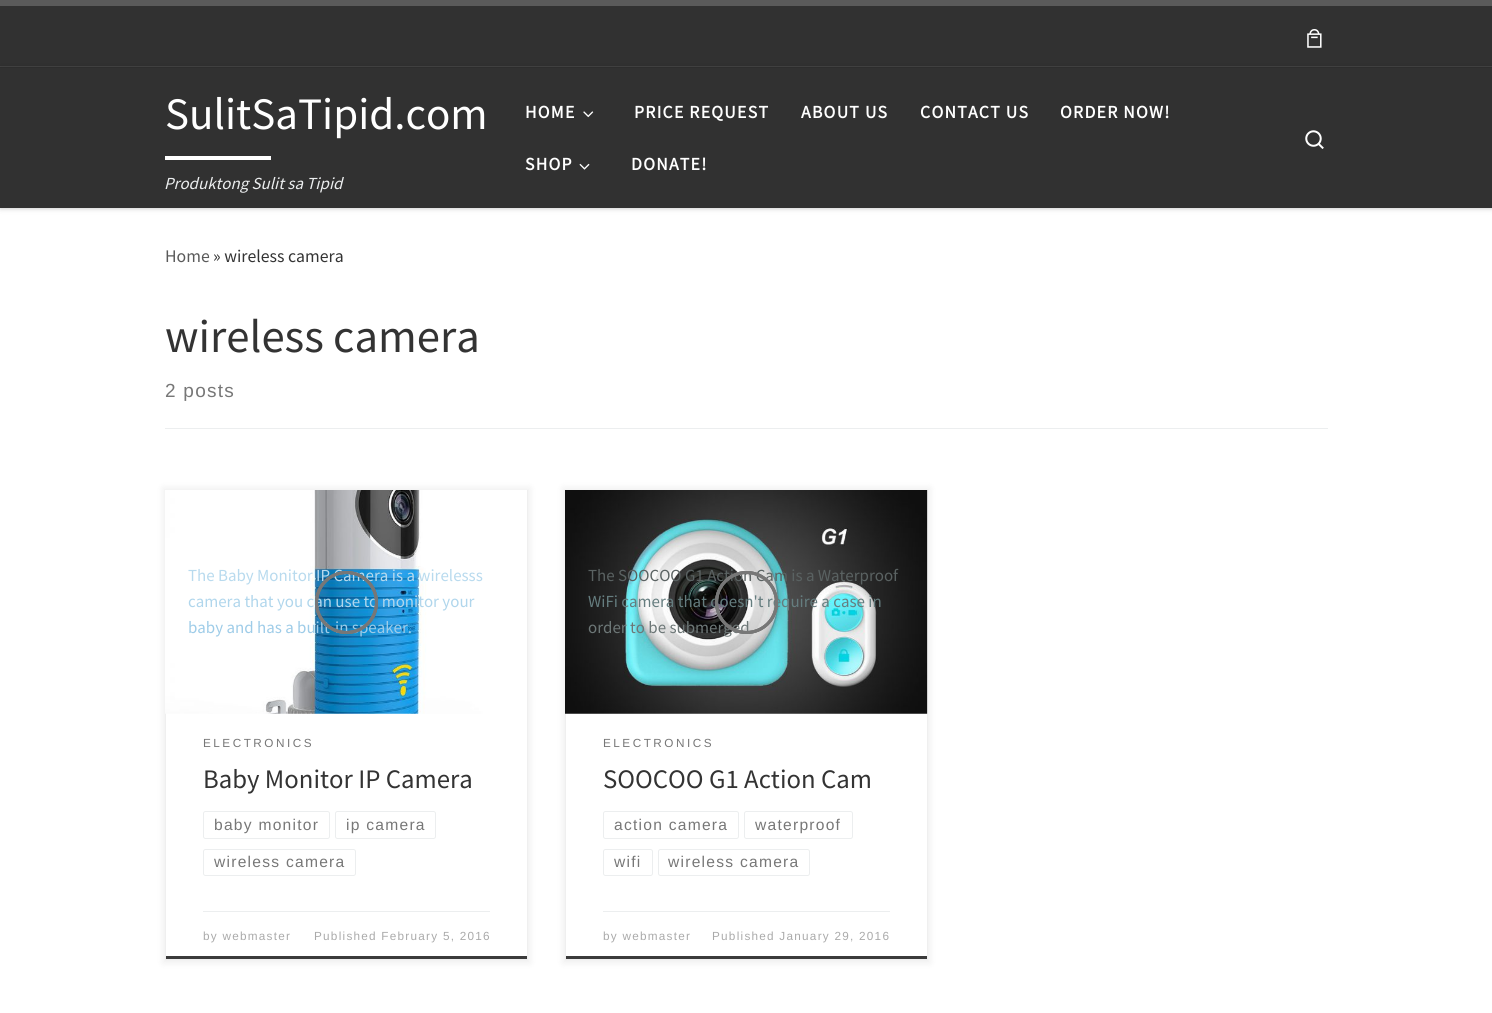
#include <cairo/cairo.h>
#include <math.h>
#include <stddef.h>

typedef struct { double x, y; const char *s; } line_t;
typedef struct { double x, y, w, h; unsigned color; } box_t;
static cairo_t *cr;

static void rgb(unsigned color)
{
	cairo_set_source_rgb(cr, (color >> 16) / 255.0, (color >> 8 & 255) / 255.0, (color & 255) / 255.0);
}

static void tracked(double x, double y, const char *s, double letter, double word)
{
	cairo_move_to(cr, x, y);
	while (*s) {
		char ch[5] = {0};
		int n = 0;
		do ch[n++] = *s++; while ((*s & 0xC0) == 0x80);
		cairo_show_text(cr, ch);
		cairo_rel_move_to(cr, letter + word * (*ch == ' '), 0);
	}
}

static void rrect(double x, double y, double w, double h, double r)
{
	cairo_new_sub_path(cr);
	cairo_arc(cr, x + w - r, y + h - r, r, 0, M_PI / 2);
	cairo_arc(cr, x + r, y + h - r, r, M_PI / 2, M_PI);
	cairo_arc(cr, x + r, y + r, r, M_PI, 1.5 * M_PI);
	cairo_arc(cr, x + w - r, y + r, r, 1.5 * M_PI, 2 * M_PI);
	cairo_close_path(cr);
}

static void soft_shadow(double x, double y, double w, double h, double r, double blur, double alpha)
{
	cairo_push_group_with_content(cr, CAIRO_CONTENT_ALPHA);
	cairo_set_operator(cr, CAIRO_OPERATOR_SOURCE);
	for (int i = 15; i >= -15 && fmin(w, h) + blur * i / 3 > 0; i -= 2) {
		double e = blur * i / 6;
		cairo_set_source_rgba(cr, 0, 0, 0, alpha * erfc((i - 1) / 8.5) / 2);
		rrect(x - e, y - e, w + 2 * e, h + 2 * e, fmax(0, fmin(r + e + blur * .6, fmin(w, h) / 2 + e)));
		cairo_fill(cr);
	}
	cairo_pattern_t *soft = cairo_pop_group(cr);
	cairo_mask(cr, soft);
	cairo_pattern_destroy(soft);
}

static void image(const char *path, double x, double y, double w, double h)
{
	cairo_surface_t *image = cairo_image_surface_create_from_png(path);
	cairo_save(cr);
	cairo_set_source_surface(cr, image, x, y);
	cairo_rectangle(cr, x, y, w, h);
	cairo_fill(cr);
	cairo_restore(cr);
	cairo_surface_destroy(image);
}

int main(void) {
	cairo_surface_t *surface = cairo_image_surface_create(CAIRO_FORMAT_RGB24, 1492, 1013);
	cr = cairo_create(surface);
	cairo_font_options_t *options = cairo_font_options_create();
	cairo_font_options_set_hint_metrics(options, CAIRO_HINT_METRICS_OFF);
	cairo_font_options_set_hint_style(options, CAIRO_HINT_STYLE_NONE);
	cairo_set_font_options(cr, options);
	cairo_set_miter_limit(cr, 4);
	rgb(0xffffff);
	cairo_paint(cr);
	rgb(0x666666);
	soft_shadow(0, 3, 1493, 206, 0, 1, 0.08);
	{
		static const box_t items[] = {
			{0, 6, 1492, 62, 0x313131},
			{0, 0, 1492, 6, 0x5a5a5a},
			{0, 66, 1492, 1, 0x444444},
		};
		for (size_t i = 0; i < sizeof items / sizeof *items; i++) {
			rgb(items[i].color);
			cairo_rectangle(cr, items[i].x, items[i].y, items[i].w, items[i].h);
			cairo_fill(cr);
		}
	}
	image("img/1.png", 1307, 29, 15, 19);
	rgb(0x000000);
	soft_shadow(0, 68, 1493, 140, 0, 3, 0.2);
	rgb(0x313131);
	cairo_rectangle(cr, 0, 68, 1492, 140);
	cairo_fill(cr);
	rgb(0xffffff);
	cairo_rectangle(cr, 165, 156, 106, 4);
	cairo_fill(cr);
	image("img/2.png", 583, 111, 11, 7);
	image("img/3.png", 579, 163, 11, 7);
	image("img/4.png", 1305, 130, 19, 19);
	rgb(0xeceeef);
	cairo_rectangle(cr, 165, 428, 1163, 1);
	cairo_fill(cr);
	rgb(0x000000);
	soft_shadow(163, 488, 367, 475, 0, 4, 0.07);
	rgb(0xffffff);
	cairo_rectangle(cr, 166, 713, 361, 243);
	cairo_fill(cr);
	rgb(0x3b3b3b);
	cairo_rectangle(cr, 165, 956, 363, 3);
	cairo_fill(cr);
	rrect(203.5, 811.5, 126, 27, 2);
	rgb(0xeceeef);
	cairo_set_line_width(cr, 1);
	cairo_stroke(cr);
	rrect(335.5, 811.5, 100, 27, 2);
	cairo_stroke(cr);
	rrect(203.5, 849.5, 152, 26, 2);
	cairo_stroke(cr);
	cairo_rectangle(cr, 165.5, 490.5, 362, 469);
	rgb(0xefefef);
	cairo_stroke(cr);
	image("img/5.png", 165, 490, 362, 224);
	rgb(0xeceeef);
	cairo_rectangle(cr, 203, 911, 287, 1);
	cairo_fill(cr);
	rgb(0x000000);
	soft_shadow(563, 488, 367, 475, 0, 4, 0.07);
	rgb(0xffffff);
	cairo_rectangle(cr, 566, 713, 361, 243);
	cairo_fill(cr);
	rgb(0x3b3b3b);
	cairo_rectangle(cr, 565, 956, 363, 3);
	cairo_fill(cr);
	rrect(603.5, 811.5, 135, 27, 2);
	rgb(0xeceeef);
	cairo_stroke(cr);
	rrect(744.5, 811.5, 108, 27, 2);
	cairo_stroke(cr);
	rrect(603.5, 849.5, 49, 26, 2);
	cairo_stroke(cr);
	rrect(658.5, 849.5, 151, 26, 2);
	cairo_stroke(cr);
	cairo_rectangle(cr, 565.5, 490.5, 362, 469);
	rgb(0xefefef);
	cairo_stroke(cr);
	image("img/6.png", 565, 490, 363, 224);
	rgb(0xeceeef);
	cairo_rectangle(cr, 603, 911, 287, 1);
	cairo_fill(cr);
	cairo_select_font_face(cr, "Source Sans Pro", CAIRO_FONT_SLANT_NORMAL, CAIRO_FONT_WEIGHT_NORMAL);
	cairo_set_font_size(cr, 45);
	rgb(0xffffff);
	cairo_move_to(cr, 165, 129);
	cairo_show_text(cr, "SulitSaTipid.com");
	cairo_select_font_face(cr, "Source Sans Pro", CAIRO_FONT_SLANT_ITALIC, CAIRO_FONT_WEIGHT_NORMAL);
	cairo_set_font_size(cr, 16.9);
	rgb(0xeceeef);
	cairo_move_to(cr, 164, 189);
	cairo_show_text(cr, "Produktong Sulit sa Tipid");
	cairo_select_font_face(cr, "Source Sans Pro", CAIRO_FONT_SLANT_NORMAL, CAIRO_FONT_WEIGHT_BOLD);
	cairo_set_font_size(cr, 17.75);
	rgb(0xffffff);
	{
		static const line_t items[] = {
			{525, 118, "HOME"},
			{634, 118, "PRICE REQUEST"},
			{801, 118, "ABOUT US"},
			{920, 118, "CONTACT US"},
			{1060, 118, "ORDER NOW!"},
			{525, 170, "SHOP"},
			{631, 170, "DONATE!"},
		};
		for (size_t i = 0; i < sizeof items / sizeof *items; i++) {
			tracked(items[i].x, items[i].y, items[i].s, 1.25, 0);
		}
	}
	cairo_select_font_face(cr, "Source Sans Pro", CAIRO_FONT_SLANT_NORMAL, CAIRO_FONT_WEIGHT_NORMAL);
	rgb(0x5a5a5a);
	cairo_move_to(cr, 165, 262);
	cairo_show_text(cr, "Home");
	rgb(0x333333);
	cairo_move_to(cr, 213, 262);
	cairo_show_text(cr, "» wireless camera");
	cairo_set_font_size(cr, 46.75);
	cairo_move_to(cr, 165, 352);
	cairo_show_text(cr, "wireless camera");
	cairo_select_font_face(cr, "Liberation Sans", CAIRO_FONT_SLANT_NORMAL, CAIRO_FONT_WEIGHT_NORMAL);
	cairo_set_font_size(cr, 19);
	rgb(0x777777);
	tracked(165, 397, "2 posts", 1.25, 0);
	cairo_select_font_face(cr, "Source Sans Pro", CAIRO_FONT_SLANT_NORMAL, CAIRO_FONT_WEIGHT_NORMAL);
	cairo_set_font_size(cr, 16.9);
	rgb(0xb8daee);
	cairo_move_to(cr, 188, 581);
	cairo_show_text(cr, "The Baby Monitor IP Camera is a wirelesss");
	rgb(0xb0d6ec);
	cairo_move_to(cr, 188, 607);
	cairo_show_text(cr, "camera that you can use to monitor your");
	rgb(0x9ecce8);
	cairo_move_to(cr, 188, 633);
	cairo_show_text(cr, "baby and has a built-in speaker.");
	cairo_new_path(cr);
	cairo_arc(cr, 346.5, 602.5, 30, 0, 2 * M_PI);
	cairo_set_source_rgba(cr, 0.467, 0.467, 0.467, 0.99);
	cairo_set_line_width(cr, 3);
	cairo_stroke(cr);
	cairo_arc(cr, 346.5, 602.5, 30, 0, 2 * M_PI);
	cairo_stroke(cr);
	cairo_arc(cr, 346.5, 602.5, 30, 0, 2 * M_PI);
	cairo_stroke(cr);
	cairo_select_font_face(cr, "Liberation Sans", CAIRO_FONT_SLANT_NORMAL, CAIRO_FONT_WEIGHT_NORMAL);
	cairo_set_font_size(cr, 11.75);
	rgb(0x777777);
	tracked(203, 747, "ELECTRONICS", 2.5, 0);
	cairo_select_font_face(cr, "Source Sans Pro", CAIRO_FONT_SLANT_NORMAL, CAIRO_FONT_WEIGHT_NORMAL);
	cairo_set_font_size(cr, 26.75);
	rgb(0x333333);
	cairo_move_to(cr, 203, 788);
	cairo_show_text(cr, "Baby Monitor IP Camera");
	cairo_select_font_face(cr, "Liberation Sans", CAIRO_FONT_SLANT_NORMAL, CAIRO_FONT_WEIGHT_NORMAL);
	cairo_set_font_size(cr, 15.6);
	rgb(0x777777);
	{
		static const line_t items[] = {
			{214, 830, "baby monitor"},
			{346, 830, "ip camera"},
			{214, 867, "wireless camera"},
		};
		for (size_t i = 0; i < sizeof items / sizeof *items; i++) {
			tracked(items[i].x, items[i].y, items[i].s, 1.25, 0);
		}
	}
	cairo_set_font_size(cr, 11.75);
	rgb(0xaaaaaa);
	tracked(203, 940, "by webmaster", 1.25, 0);
	tracked(314, 940, "Published February 5, 2016", 1.25, 0);
	cairo_select_font_face(cr, "Source Sans Pro", CAIRO_FONT_SLANT_NORMAL, CAIRO_FONT_WEIGHT_NORMAL);
	cairo_set_font_size(cr, 16.9);
	rgb(0x5a6262);
	cairo_move_to(cr, 588, 581);
	cairo_show_text(cr, "The SOOCOO G1 Action Cam is a Waterproof");
	rgb(0x657d7f);
	cairo_move_to(cr, 588, 607);
	cairo_show_text(cr, "WiFi camera that doesn't require a case in");
	rgb(0x6d7777);
	cairo_move_to(cr, 588, 633);
	cairo_show_text(cr, "order to be submerged");
	cairo_new_path(cr);
	cairo_arc(cr, 746.5, 602.5, 30, 0, 2 * M_PI);
	cairo_set_source_rgba(cr, 0.467, 0.467, 0.467, 0.99);
	cairo_stroke(cr);
	cairo_arc(cr, 746.5, 602.5, 30, 0, 2 * M_PI);
	cairo_stroke(cr);
	cairo_arc(cr, 746.5, 602.5, 30, 0, 2 * M_PI);
	cairo_stroke(cr);
	cairo_select_font_face(cr, "Liberation Sans", CAIRO_FONT_SLANT_NORMAL, CAIRO_FONT_WEIGHT_NORMAL);
	cairo_set_font_size(cr, 11.75);
	rgb(0x777777);
	tracked(603, 747, "ELECTRONICS", 2.5, 0);
	cairo_select_font_face(cr, "Source Sans Pro", CAIRO_FONT_SLANT_NORMAL, CAIRO_FONT_WEIGHT_NORMAL);
	cairo_set_font_size(cr, 26.75);
	rgb(0x333333);
	cairo_move_to(cr, 603, 788);
	cairo_show_text(cr, "SOOCOO G1 Action Cam");
	cairo_select_font_face(cr, "Liberation Sans", CAIRO_FONT_SLANT_NORMAL, CAIRO_FONT_WEIGHT_NORMAL);
	cairo_set_font_size(cr, 15.6);
	rgb(0x777777);
	{
		static const line_t items[] = {
			{614, 830, "action camera"},
			{755, 830, "waterproof"},
			{614, 867, "wifi"},
			{668, 867, "wireless camera"},
		};
		for (size_t i = 0; i < sizeof items / sizeof *items; i++) {
			tracked(items[i].x, items[i].y, items[i].s, 1.25, 0);
		}
	}
	cairo_set_font_size(cr, 11.75);
	rgb(0xaaaaaa);
	tracked(603, 940, "by webmaster", 1.25, 0);
	tracked(712, 940, "Published January 29, 2016", 1.25, 0);
	cairo_surface_write_to_png(surface, "page.png");
	cairo_font_options_destroy(options);
	cairo_destroy(cr);
	cairo_surface_destroy(surface);
	return 0;
}
